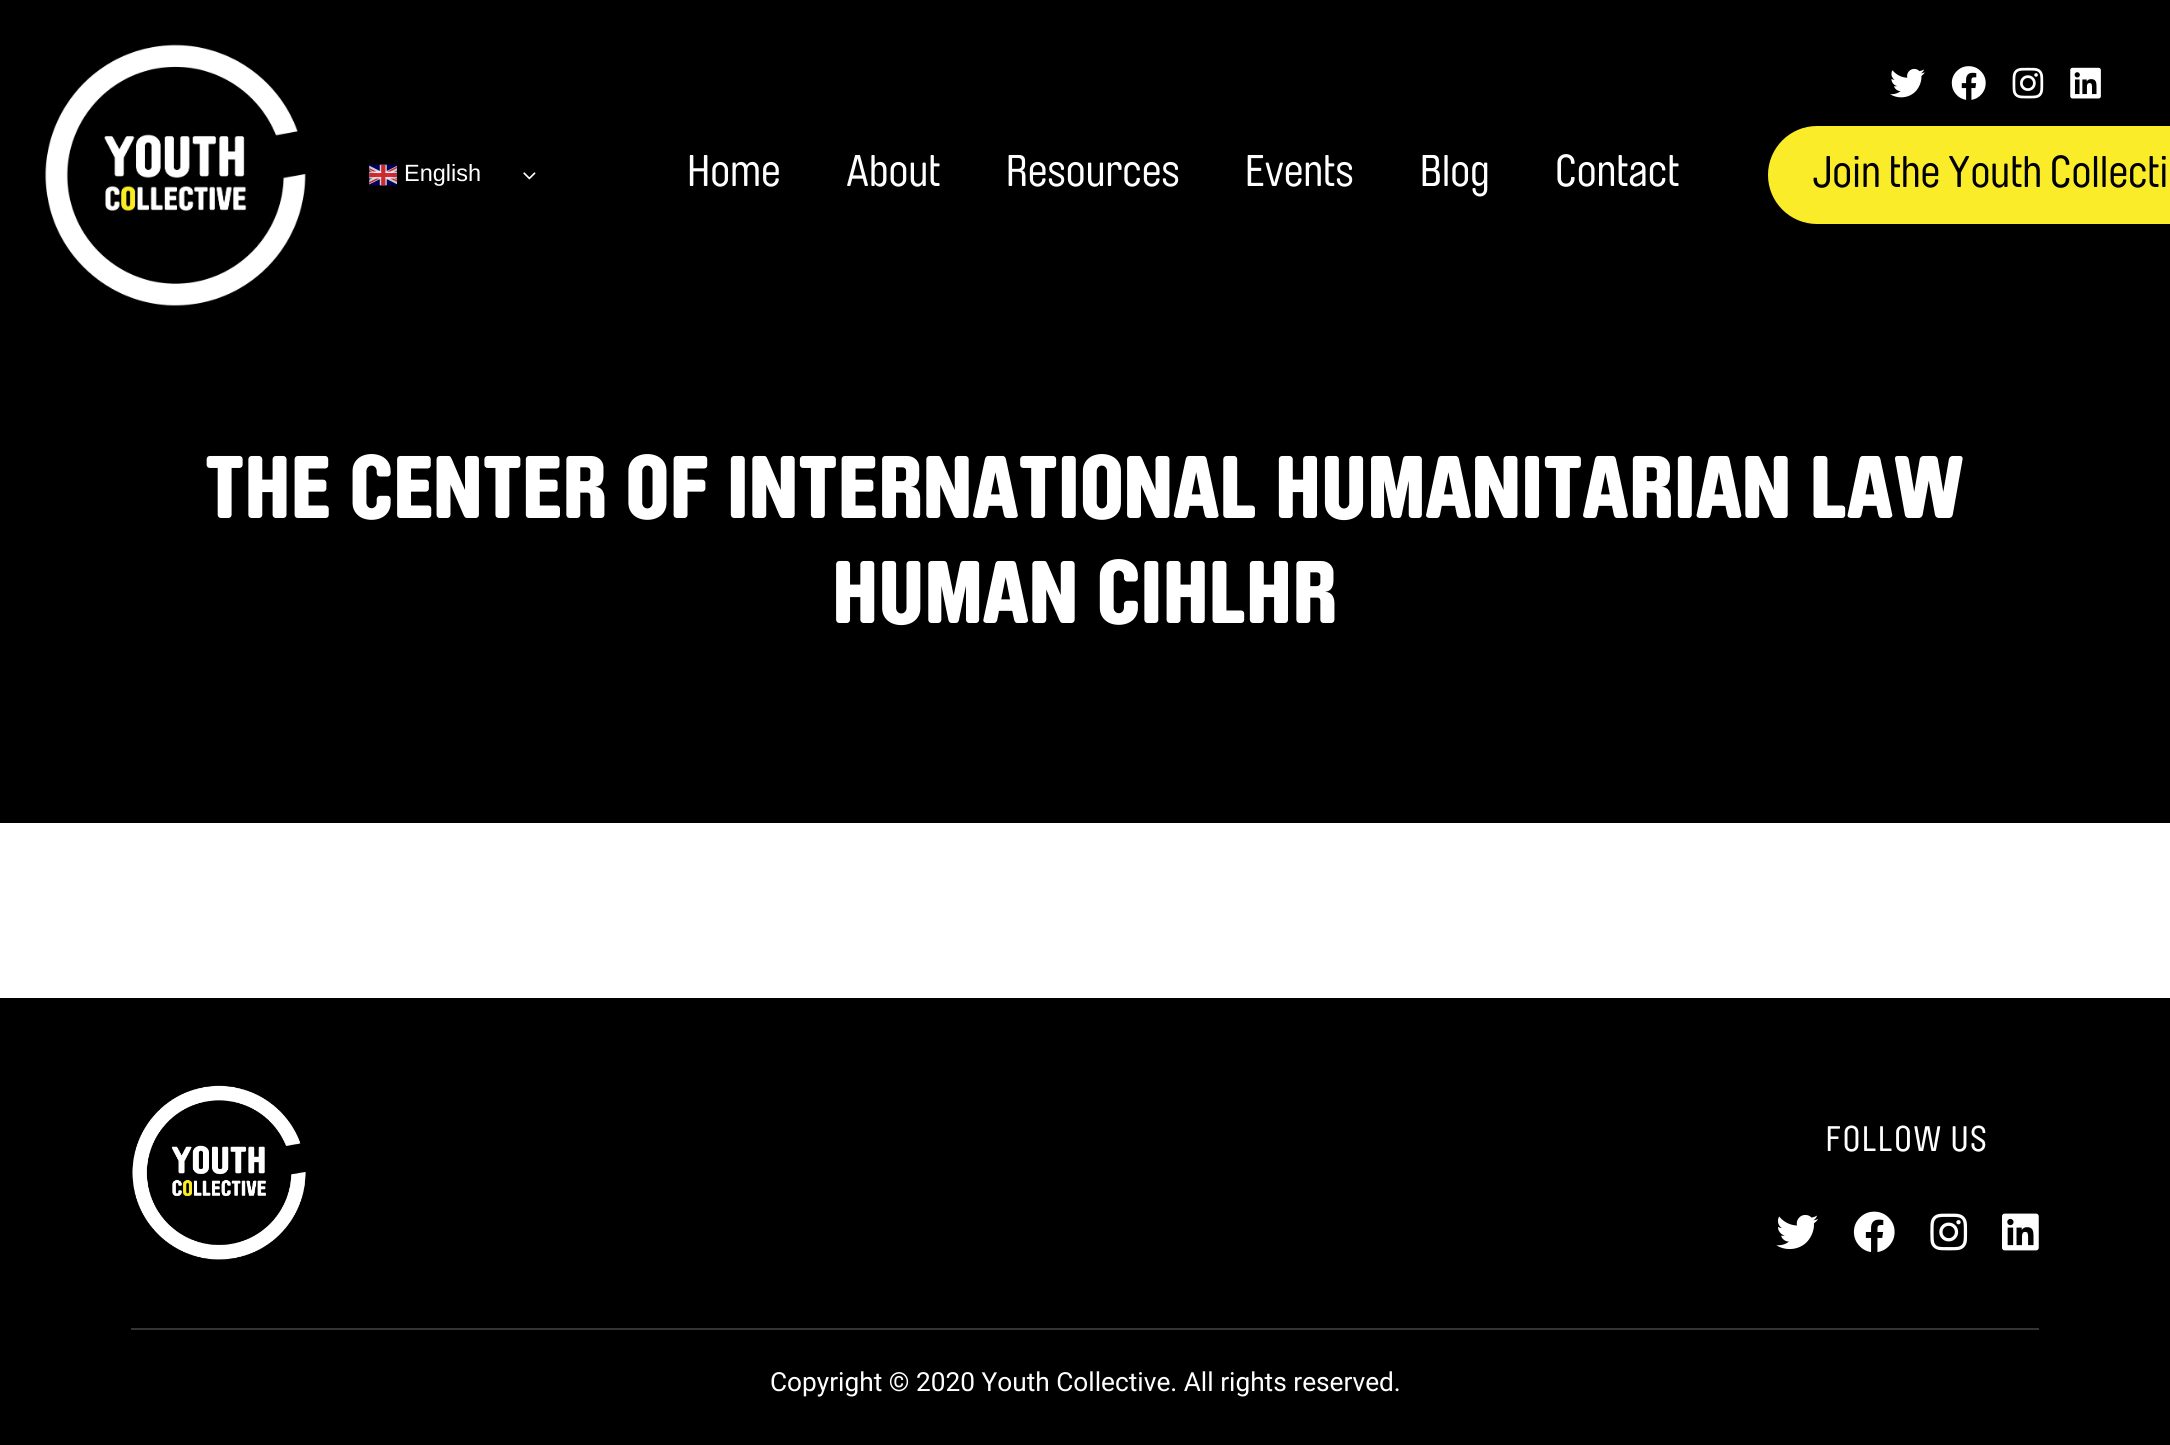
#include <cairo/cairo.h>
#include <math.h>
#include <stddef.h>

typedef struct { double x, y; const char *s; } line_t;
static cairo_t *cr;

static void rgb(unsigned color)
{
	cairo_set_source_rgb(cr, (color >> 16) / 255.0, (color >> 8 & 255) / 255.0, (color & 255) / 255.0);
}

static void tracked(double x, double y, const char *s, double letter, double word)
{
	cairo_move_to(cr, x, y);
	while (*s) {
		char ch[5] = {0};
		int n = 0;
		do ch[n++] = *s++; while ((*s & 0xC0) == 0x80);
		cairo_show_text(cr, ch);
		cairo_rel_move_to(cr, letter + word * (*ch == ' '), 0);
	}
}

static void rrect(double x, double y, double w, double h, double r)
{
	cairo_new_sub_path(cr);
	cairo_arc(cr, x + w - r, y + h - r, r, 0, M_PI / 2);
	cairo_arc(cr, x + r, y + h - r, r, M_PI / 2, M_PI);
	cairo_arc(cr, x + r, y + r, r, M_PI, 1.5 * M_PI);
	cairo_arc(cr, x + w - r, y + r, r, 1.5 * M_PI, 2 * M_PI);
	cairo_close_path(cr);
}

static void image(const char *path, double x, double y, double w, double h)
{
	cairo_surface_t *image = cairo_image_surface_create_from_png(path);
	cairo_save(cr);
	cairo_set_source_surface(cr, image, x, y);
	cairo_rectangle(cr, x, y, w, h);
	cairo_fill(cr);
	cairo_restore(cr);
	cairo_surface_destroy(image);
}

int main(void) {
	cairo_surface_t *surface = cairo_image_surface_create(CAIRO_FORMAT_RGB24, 2170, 1445);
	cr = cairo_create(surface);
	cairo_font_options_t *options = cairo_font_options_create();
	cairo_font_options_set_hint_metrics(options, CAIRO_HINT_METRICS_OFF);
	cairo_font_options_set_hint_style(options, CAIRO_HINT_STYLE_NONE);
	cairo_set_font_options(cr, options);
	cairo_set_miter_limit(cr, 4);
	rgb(0xffffff);
	cairo_paint(cr);
	rgb(0x000000);
	cairo_rectangle(cr, 0, 0, 2170, 823);
	cairo_fill(cr);
	image("img/1.png", 1890, 68, 35, 30);
	image("img/2.png", 1951, 66, 35, 34);
	image("img/3.png", 2012, 67, 32, 32);
	image("img/4.png", 2070, 67, 31, 32);
	image("img/5.png", 45, 44, 261, 262);
	image("img/6.png", 369, 164, 28, 22);
	image("img/7.png", 523, 172, 13, 8);
	rgb(0xfaec29);
	rrect(1769, 127, 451, 96, 48);
	cairo_fill_preserve(cr);
	cairo_stroke(cr);
	rgb(0x000000);
	cairo_rectangle(cr, 0, 998, 2170, 447);
	cairo_fill(cr);
	image("img/8.png", 132, 1085, 174, 175);
	image("img/9.png", 1776, 1214, 43, 36);
	image("img/10.png", 1853, 1211, 42, 41);
	image("img/11.png", 1930, 1213, 38, 38);
	image("img/12.png", 2002, 1213, 37, 38);
	rgb(0x333333);
	cairo_rectangle(cr, 131, 1328, 1908, 2);
	cairo_fill(cr);
	cairo_select_font_face(cr, "Liberation Sans", CAIRO_FONT_SLANT_NORMAL, CAIRO_FONT_WEIGHT_NORMAL);
	cairo_set_font_size(cr, 23.5);
	rgb(0xffffff);
	cairo_move_to(cr, 404, 181);
	cairo_show_text(cr, "English");
	cairo_select_font_face(cr, "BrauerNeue", CAIRO_FONT_SLANT_NORMAL, CAIRO_FONT_WEIGHT_NORMAL);
	cairo_set_font_size(cr, 43.75);
	{
		static const line_t items[] = {
			{687, 186, "Home"},
			{846, 186, "About"},
			{1006, 186, "Resources"},
			{1245, 186, "Events"},
			{1420, 186, "Blog"},
			{1555, 186, "Contact"},
		};
		for (size_t i = 0; i < sizeof items / sizeof *items; i++) {
			cairo_move_to(cr, items[i].x, items[i].y);
			cairo_show_text(cr, items[i].s);
		}
	}
	rgb(0x000000);
	cairo_move_to(cr, 1812, 187);
	cairo_show_text(cr, "Join the Youth Collecti");
	cairo_select_font_face(cr, "BrauerNeue Black", CAIRO_FONT_SLANT_NORMAL, CAIRO_FONT_WEIGHT_NORMAL);
	cairo_set_font_size(cr, 87.5);
	rgb(0xffffff);
	cairo_move_to(cr, 205, 518);
	cairo_show_text(cr, "THE CENTER OF INTERNATIONAL HUMANITARIAN LAW");
	cairo_move_to(cr, 832, 623);
	cairo_show_text(cr, "HUMAN CIHLHR");
	cairo_select_font_face(cr, "BrauerNeue", CAIRO_FONT_SLANT_NORMAL, CAIRO_FONT_WEIGHT_NORMAL);
	cairo_set_font_size(cr, 35);
	tracked(1826, 1151, "FOLLOW US", 1.75, 0);
	cairo_select_font_face(cr, "Roboto", CAIRO_FONT_SLANT_NORMAL, CAIRO_FONT_WEIGHT_NORMAL);
	cairo_set_font_size(cr, 26.25);
	cairo_move_to(cr, 770, 1391);
	cairo_show_text(cr, "Copyright © 2020 Youth Collective. All rights reserved.");
	cairo_surface_write_to_png(surface, "page.png");
	cairo_font_options_destroy(options);
	cairo_destroy(cr);
	cairo_surface_destroy(surface);
	return 0;
}
